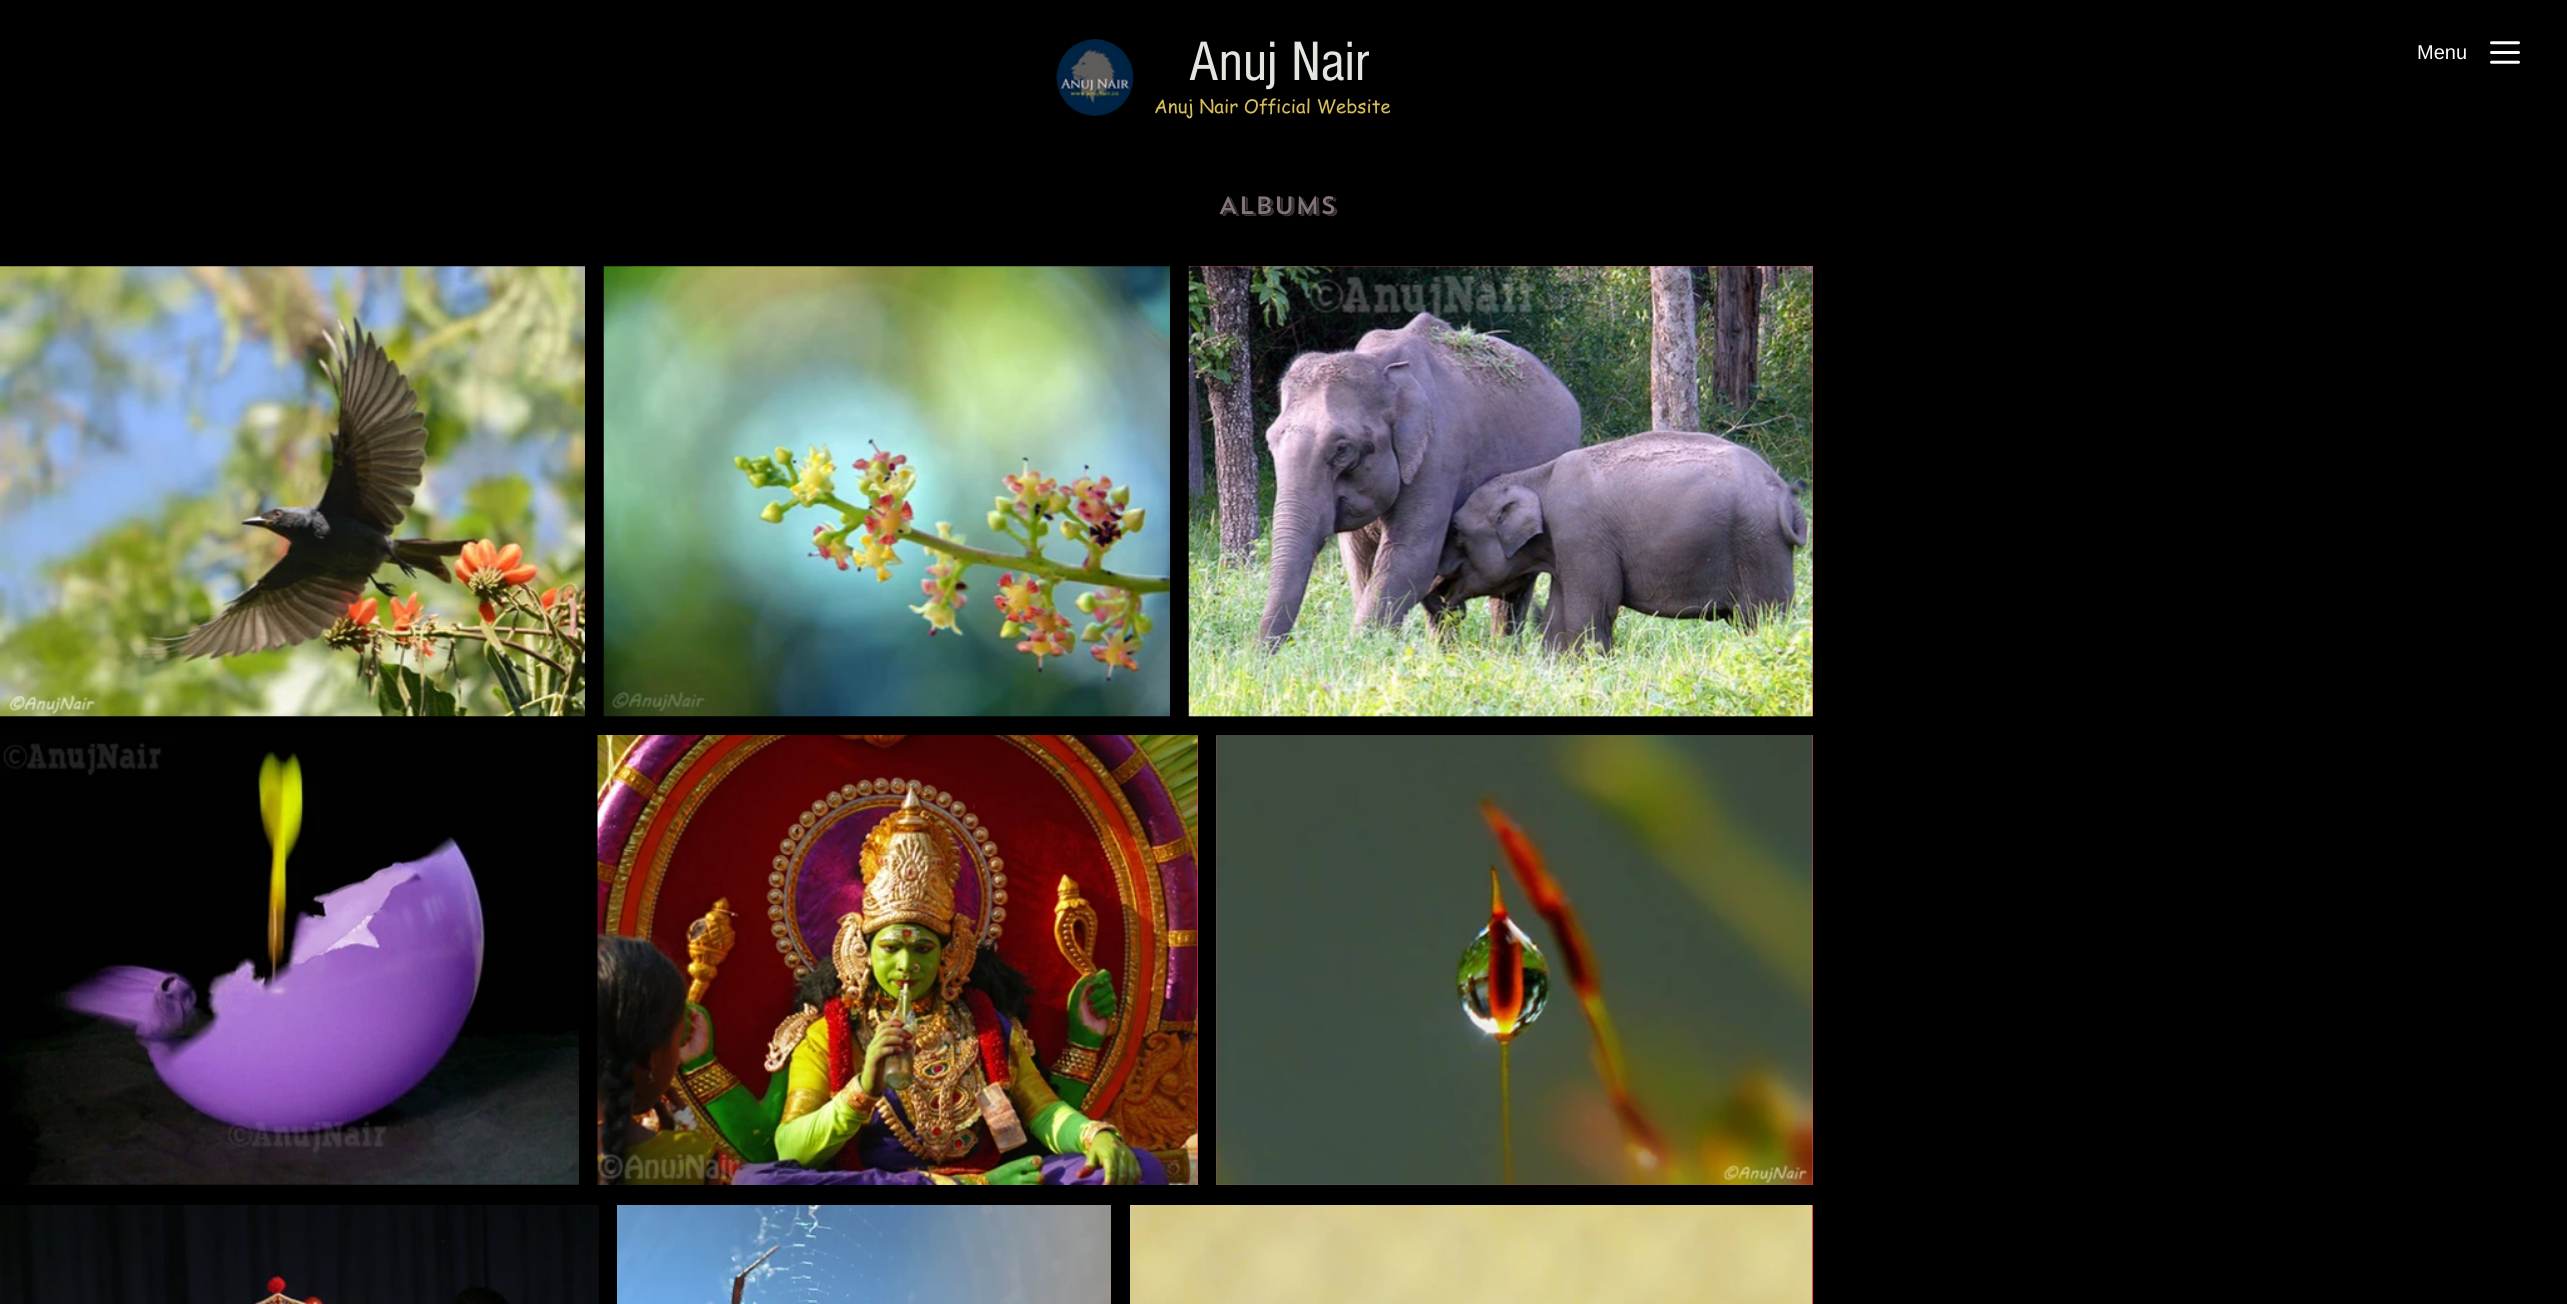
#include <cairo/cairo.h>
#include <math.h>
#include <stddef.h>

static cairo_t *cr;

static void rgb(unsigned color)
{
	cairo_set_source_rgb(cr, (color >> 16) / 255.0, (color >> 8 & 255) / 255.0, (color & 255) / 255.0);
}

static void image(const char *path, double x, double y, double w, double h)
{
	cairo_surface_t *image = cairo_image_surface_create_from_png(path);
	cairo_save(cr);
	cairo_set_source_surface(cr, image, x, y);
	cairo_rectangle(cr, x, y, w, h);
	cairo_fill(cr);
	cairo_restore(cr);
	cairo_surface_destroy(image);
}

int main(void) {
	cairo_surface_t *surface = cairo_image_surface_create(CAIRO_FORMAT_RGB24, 2567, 1304);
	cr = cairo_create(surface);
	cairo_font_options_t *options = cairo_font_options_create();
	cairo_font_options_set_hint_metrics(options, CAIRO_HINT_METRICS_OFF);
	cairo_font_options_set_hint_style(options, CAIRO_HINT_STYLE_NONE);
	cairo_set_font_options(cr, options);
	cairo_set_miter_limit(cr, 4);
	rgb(0x000000);
	cairo_paint(cr);
	image("img/1.png", 1056, 39, 78, 77);
	image("img/2.png", 2490, 41, 30, 23);
	image("img/3.png", 0, 266, 585, 451);
	image("img/4.png", 603, 266, 567, 451);
	rgb(0xf9455a);
	cairo_rectangle(cr, 1189, 266, 624, 450);
	cairo_fill(cr);
	image("img/5.png", 1188, 266, 625, 451);
	image("img/6.png", 0, 735, 579, 450);
	cairo_rectangle(cr, 1197, 735, 1, 450);
	cairo_fill(cr);
	image("img/7.png", 597, 735, 601, 450);
	cairo_rectangle(cr, 1216, 735, 597, 450);
	cairo_fill(cr);
	image("img/8.png", 1216, 735, 597, 450);
	image("img/9.png", 0, 1205, 599, 99);
	image("img/10.png", 617, 1205, 494, 99);
	cairo_rectangle(cr, 1812, 1205, 1, 99);
	cairo_fill(cr);
	image("img/11.png", 1130, 1205, 682, 99);
	cairo_select_font_face(cr, "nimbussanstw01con", CAIRO_FONT_SLANT_NORMAL, CAIRO_FONT_WEIGHT_NORMAL);
	cairo_set_font_size(cr, 57.5);
	rgb(0xe6e4df);
	cairo_move_to(cr, 1189, 80);
	cairo_show_text(cr, "Anuj Nair");
	cairo_select_font_face(cr, "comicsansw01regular", CAIRO_FONT_SLANT_NORMAL, CAIRO_FONT_WEIGHT_NORMAL);
	cairo_set_font_size(cr, 18.75);
	rgb(0xd6bd5a);
	cairo_move_to(cr, 1154, 113);
	cairo_show_text(cr, "Anuj Nair Official Website");
	cairo_select_font_face(cr, "Liberation Sans", CAIRO_FONT_SLANT_NORMAL, CAIRO_FONT_WEIGHT_NORMAL);
	cairo_set_font_size(cr, 20);
	rgb(0xffffff);
	cairo_move_to(cr, 2417, 59);
	cairo_show_text(cr, "Menu");
	cairo_select_font_face(cr, "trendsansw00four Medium", CAIRO_FONT_SLANT_NORMAL, CAIRO_FONT_WEIGHT_NORMAL);
	cairo_set_font_size(cr, 25);
	rgb(0x827476);
	cairo_move_to(cr, 1218, 214);
	cairo_show_text(cr, "ALBUMS");
	cairo_surface_write_to_png(surface, "page.png");
	cairo_font_options_destroy(options);
	cairo_destroy(cr);
	cairo_surface_destroy(surface);
	return 0;
}
